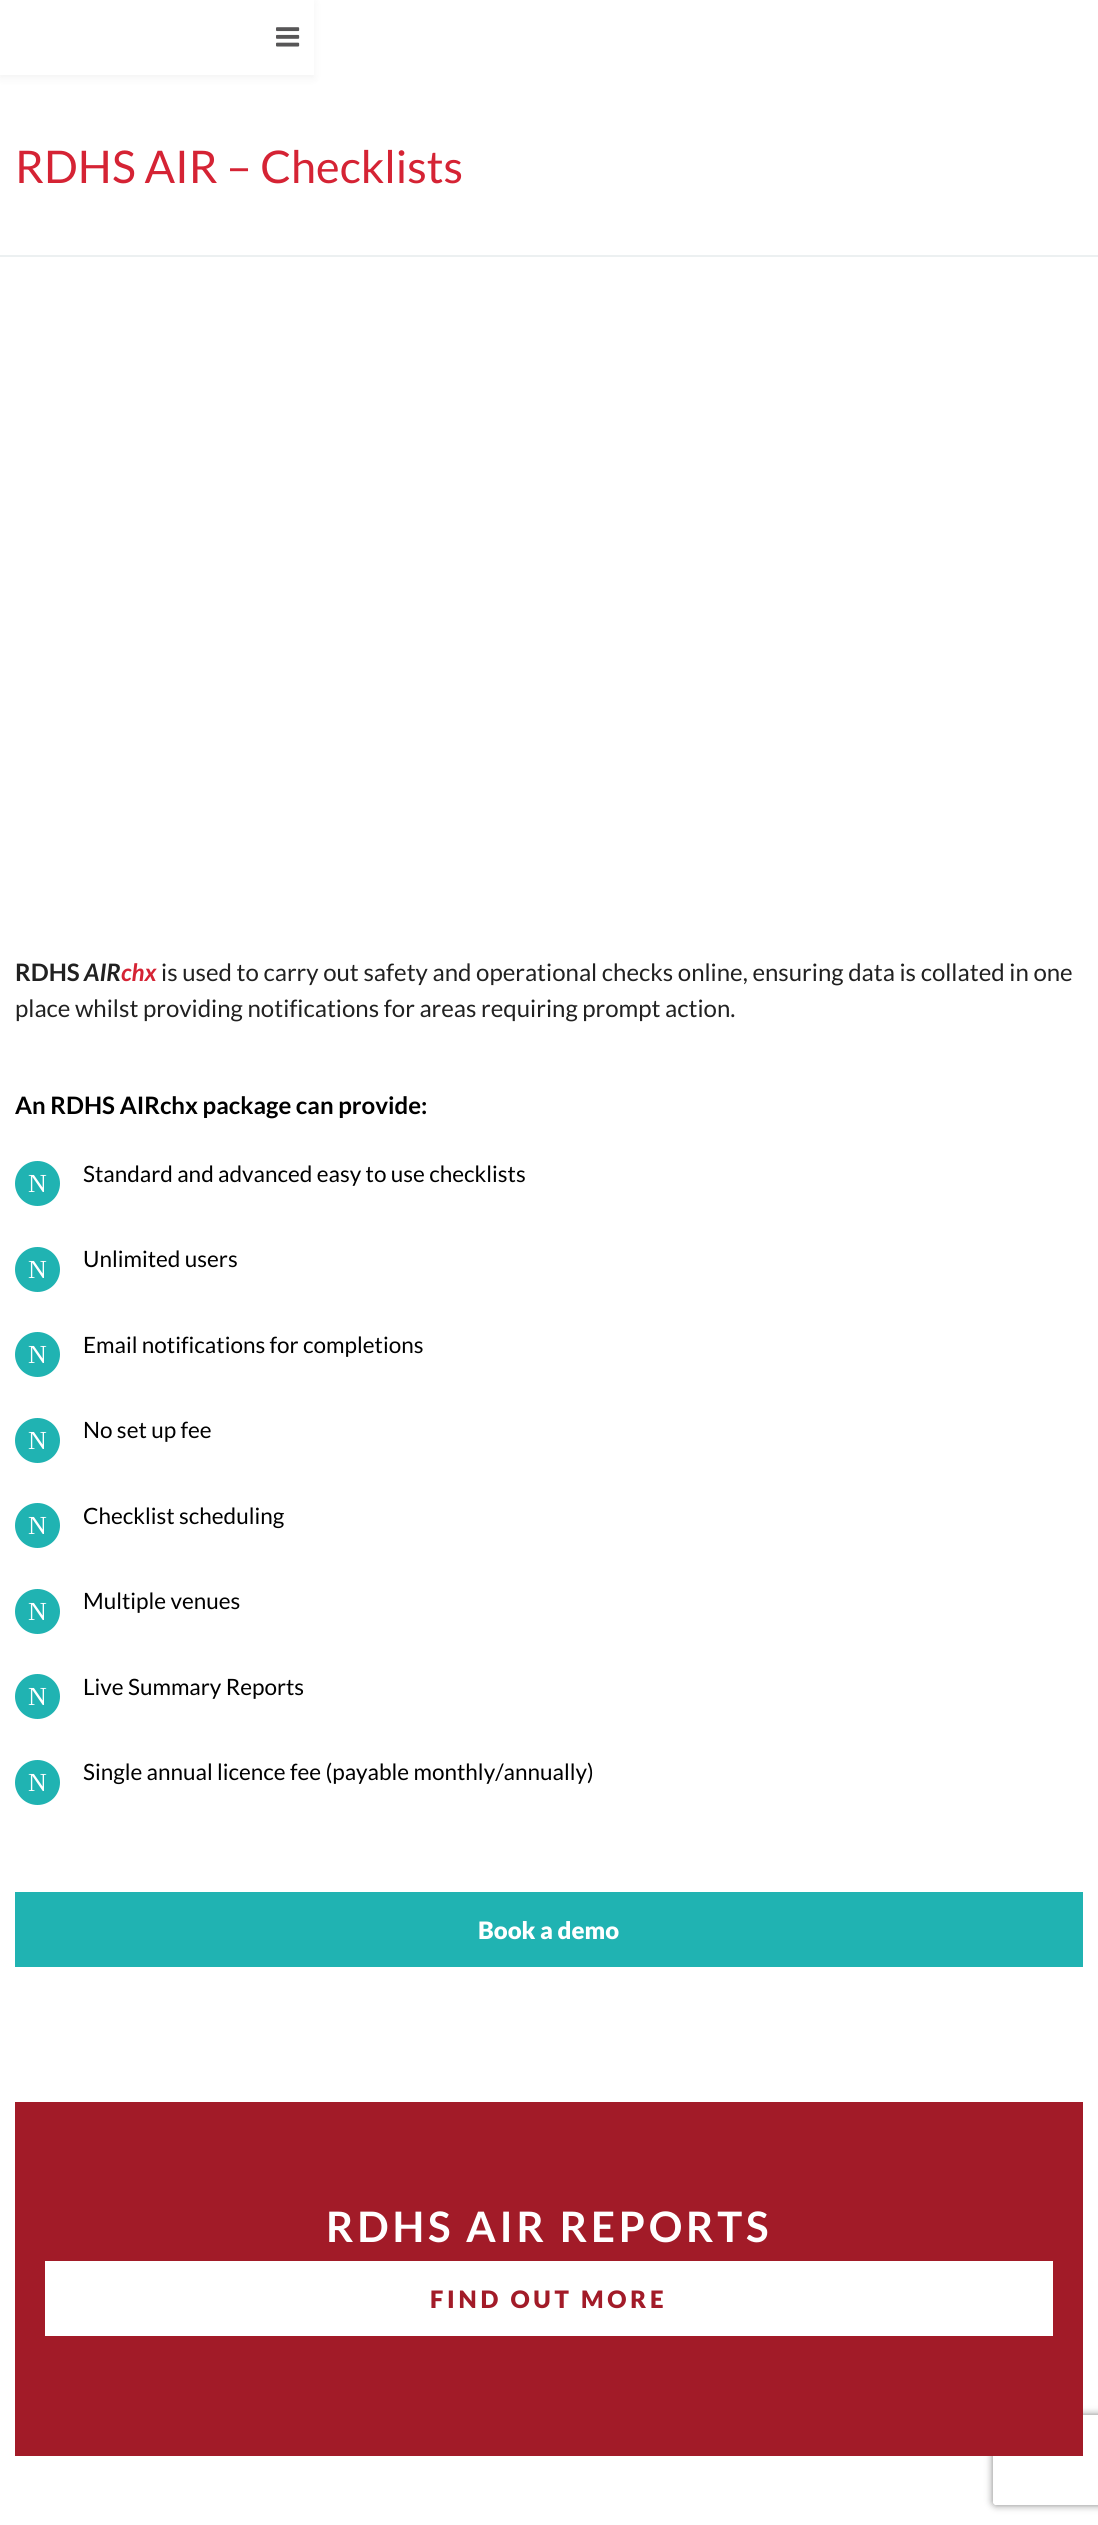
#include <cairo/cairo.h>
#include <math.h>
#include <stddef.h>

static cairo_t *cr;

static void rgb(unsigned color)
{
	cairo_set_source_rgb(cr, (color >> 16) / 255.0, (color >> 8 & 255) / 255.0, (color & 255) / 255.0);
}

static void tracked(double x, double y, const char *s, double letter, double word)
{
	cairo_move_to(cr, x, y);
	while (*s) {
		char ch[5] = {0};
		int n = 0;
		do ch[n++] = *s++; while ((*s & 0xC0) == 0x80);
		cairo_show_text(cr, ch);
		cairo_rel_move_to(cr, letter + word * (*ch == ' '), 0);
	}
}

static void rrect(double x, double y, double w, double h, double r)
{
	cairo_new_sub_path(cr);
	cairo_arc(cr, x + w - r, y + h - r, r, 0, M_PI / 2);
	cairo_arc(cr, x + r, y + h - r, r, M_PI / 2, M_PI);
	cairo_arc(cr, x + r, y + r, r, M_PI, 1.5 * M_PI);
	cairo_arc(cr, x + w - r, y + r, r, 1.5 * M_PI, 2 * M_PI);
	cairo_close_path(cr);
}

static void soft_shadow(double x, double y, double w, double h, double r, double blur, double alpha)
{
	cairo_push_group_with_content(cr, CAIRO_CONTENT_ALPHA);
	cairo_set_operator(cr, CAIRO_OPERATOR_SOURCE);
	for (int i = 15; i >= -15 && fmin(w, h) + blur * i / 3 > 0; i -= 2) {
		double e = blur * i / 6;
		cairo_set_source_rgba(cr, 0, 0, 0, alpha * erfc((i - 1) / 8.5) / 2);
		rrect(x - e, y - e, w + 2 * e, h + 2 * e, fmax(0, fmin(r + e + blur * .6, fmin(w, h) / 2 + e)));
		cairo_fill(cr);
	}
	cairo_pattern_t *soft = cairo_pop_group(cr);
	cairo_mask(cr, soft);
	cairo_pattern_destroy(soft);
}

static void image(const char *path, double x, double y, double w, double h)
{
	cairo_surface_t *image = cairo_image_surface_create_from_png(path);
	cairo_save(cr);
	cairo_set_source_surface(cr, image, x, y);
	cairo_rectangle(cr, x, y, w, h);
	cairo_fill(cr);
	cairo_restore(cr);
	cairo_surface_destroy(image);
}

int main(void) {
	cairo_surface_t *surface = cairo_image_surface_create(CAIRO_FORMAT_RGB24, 1098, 2525);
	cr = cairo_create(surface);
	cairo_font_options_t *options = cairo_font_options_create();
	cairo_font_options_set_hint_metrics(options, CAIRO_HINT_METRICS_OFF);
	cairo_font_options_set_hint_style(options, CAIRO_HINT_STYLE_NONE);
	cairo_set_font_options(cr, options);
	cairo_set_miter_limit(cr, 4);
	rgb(0xffffff);
	cairo_paint(cr);
	rgb(0x000000);
	soft_shadow(0, 3, 314, 75, 0, 4.5, 0.05);
	rgb(0xffffff);
	cairo_rectangle(cr, 0, 0, 314, 75);
	cairo_fill(cr);
	image("img/1.png", 276, 27, 24, 20);
	rgb(0xecf0f1);
	cairo_rectangle(cr, 0, 255, 1098, 2);
	cairo_fill(cr);
	rgb(0x20b3b2);
	cairo_arc(cr, 37.5, 1183.5, 22.5, 0, 2 * M_PI);
	cairo_fill(cr);
	cairo_arc(cr, 37.5, 1269.5, 22.5, 0, 2 * M_PI);
	cairo_fill(cr);
	cairo_arc(cr, 37.5, 1354.5, 22.5, 0, 2 * M_PI);
	cairo_fill(cr);
	cairo_arc(cr, 37.5, 1440.5, 22.5, 0, 2 * M_PI);
	cairo_fill(cr);
	cairo_arc(cr, 37.5, 1525.5, 22.5, 0, 2 * M_PI);
	cairo_fill(cr);
	cairo_arc(cr, 37.5, 1611.5, 22.5, 0, 2 * M_PI);
	cairo_fill(cr);
	cairo_arc(cr, 37.5, 1696.5, 22.5, 0, 2 * M_PI);
	cairo_fill(cr);
	cairo_arc(cr, 37.5, 1782.5, 22.5, 0, 2 * M_PI);
	cairo_fill(cr);
	cairo_rectangle(cr, 15, 1892, 1068, 75);
	cairo_fill(cr);
	cairo_save(cr);
	cairo_set_fill_rule(cr, CAIRO_FILL_RULE_EVEN_ODD);
	cairo_new_path(cr);
	cairo_move_to(cr, 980, 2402);
	cairo_line_to(cr, 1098, 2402);
	cairo_line_to(cr, 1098, 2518);
	cairo_line_to(cr, 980, 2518);
	cairo_close_path(cr);
	cairo_move_to(cr, 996, 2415);
	cairo_line_to(cr, 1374, 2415);
	cairo_curve_to(cr, 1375.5, 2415, 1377, 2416.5, 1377, 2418);
	cairo_line_to(cr, 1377, 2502);
	cairo_curve_to(cr, 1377, 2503.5, 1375.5, 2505, 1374, 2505);
	cairo_line_to(cr, 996, 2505);
	cairo_curve_to(cr, 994.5, 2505, 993, 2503.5, 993, 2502);
	cairo_line_to(cr, 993, 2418);
	cairo_curve_to(cr, 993, 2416.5, 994.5, 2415, 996, 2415);
	cairo_close_path(cr);
	cairo_clip(cr);
	rgb(0x808080);
	soft_shadow(993, 2415, 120, 90, 3, 4, 1);
	cairo_restore(cr);
	rgb(0xa21b28);
	cairo_rectangle(cr, 15, 2102, 1068, 354);
	cairo_fill(cr);
	rgb(0xffffff);
	cairo_rectangle(cr, 45, 2261, 1008, 75);
	cairo_fill(cr);
	cairo_select_font_face(cr, "Lato", CAIRO_FONT_SLANT_NORMAL, CAIRO_FONT_WEIGHT_NORMAL);
	cairo_set_font_size(cr, 45);
	rgb(0xd52334);
	cairo_move_to(cr, 15, 183);
	cairo_show_text(cr, "RDHS AIR – Checklists");
	cairo_select_font_face(cr, "Lato", CAIRO_FONT_SLANT_NORMAL, CAIRO_FONT_WEIGHT_BOLD);
	cairo_set_font_size(cr, 24);
	rgb(0x212121);
	cairo_move_to(cr, 15, 981);
	cairo_show_text(cr, "RDHS");
	cairo_select_font_face(cr, "Lato", CAIRO_FONT_SLANT_ITALIC, CAIRO_FONT_WEIGHT_BOLD);
	cairo_move_to(cr, 84, 981);
	cairo_show_text(cr, "AIR");
	rgb(0xd52334);
	cairo_move_to(cr, 121, 981);
	cairo_show_text(cr, "chx");
	cairo_select_font_face(cr, "Lato", CAIRO_FONT_SLANT_NORMAL, CAIRO_FONT_WEIGHT_NORMAL);
	rgb(0x212121);
	cairo_move_to(cr, 161, 981);
	cairo_show_text(cr, "is used to carry out safety and operational checks online, ensuring data is collated in one");
	cairo_move_to(cr, 15, 1017);
	cairo_show_text(cr, "place whilst providing notifications for areas requiring prompt action.");
	cairo_select_font_face(cr, "Lato", CAIRO_FONT_SLANT_NORMAL, CAIRO_FONT_WEIGHT_BOLD);
	rgb(0x000000);
	cairo_move_to(cr, 15, 1114);
	cairo_show_text(cr, "An RDHS AIRchx package can provide:");
	cairo_select_font_face(cr, "Liberation Serif", CAIRO_FONT_SLANT_NORMAL, CAIRO_FONT_WEIGHT_NORMAL);
	cairo_set_font_size(cr, 26);
	rgb(0xffffff);
	cairo_move_to(cr, 28, 1192);
	cairo_show_text(cr, "N");
	cairo_select_font_face(cr, "Lato", CAIRO_FONT_SLANT_NORMAL, CAIRO_FONT_WEIGHT_NORMAL);
	cairo_set_font_size(cr, 22.5);
	rgb(0x000000);
	cairo_move_to(cr, 83, 1182);
	cairo_show_text(cr, "Standard and advanced easy to use checklists");
	cairo_select_font_face(cr, "Liberation Serif", CAIRO_FONT_SLANT_NORMAL, CAIRO_FONT_WEIGHT_NORMAL);
	cairo_set_font_size(cr, 26);
	rgb(0xffffff);
	cairo_move_to(cr, 28, 1278);
	cairo_show_text(cr, "N");
	cairo_select_font_face(cr, "Lato", CAIRO_FONT_SLANT_NORMAL, CAIRO_FONT_WEIGHT_NORMAL);
	cairo_set_font_size(cr, 22.5);
	rgb(0x000000);
	cairo_move_to(cr, 83, 1267);
	cairo_show_text(cr, "Unlimited users");
	cairo_select_font_face(cr, "Liberation Serif", CAIRO_FONT_SLANT_NORMAL, CAIRO_FONT_WEIGHT_NORMAL);
	cairo_set_font_size(cr, 26);
	rgb(0xffffff);
	cairo_move_to(cr, 28, 1363);
	cairo_show_text(cr, "N");
	cairo_select_font_face(cr, "Lato", CAIRO_FONT_SLANT_NORMAL, CAIRO_FONT_WEIGHT_NORMAL);
	cairo_set_font_size(cr, 22.5);
	rgb(0x000000);
	cairo_move_to(cr, 83, 1353);
	cairo_show_text(cr, "Email notifications for completions");
	cairo_select_font_face(cr, "Liberation Serif", CAIRO_FONT_SLANT_NORMAL, CAIRO_FONT_WEIGHT_NORMAL);
	cairo_set_font_size(cr, 26);
	rgb(0xffffff);
	cairo_move_to(cr, 28, 1449);
	cairo_show_text(cr, "N");
	cairo_select_font_face(cr, "Lato", CAIRO_FONT_SLANT_NORMAL, CAIRO_FONT_WEIGHT_NORMAL);
	cairo_set_font_size(cr, 22.5);
	rgb(0x000000);
	cairo_move_to(cr, 83, 1438);
	cairo_show_text(cr, "No set up fee");
	cairo_select_font_face(cr, "Liberation Serif", CAIRO_FONT_SLANT_NORMAL, CAIRO_FONT_WEIGHT_NORMAL);
	cairo_set_font_size(cr, 26);
	rgb(0xffffff);
	cairo_move_to(cr, 28, 1534);
	cairo_show_text(cr, "N");
	cairo_select_font_face(cr, "Lato", CAIRO_FONT_SLANT_NORMAL, CAIRO_FONT_WEIGHT_NORMAL);
	cairo_set_font_size(cr, 22.5);
	rgb(0x000000);
	cairo_move_to(cr, 83, 1524);
	cairo_show_text(cr, "Checklist scheduling");
	cairo_select_font_face(cr, "Liberation Serif", CAIRO_FONT_SLANT_NORMAL, CAIRO_FONT_WEIGHT_NORMAL);
	cairo_set_font_size(cr, 26);
	rgb(0xffffff);
	cairo_move_to(cr, 28, 1620);
	cairo_show_text(cr, "N");
	cairo_select_font_face(cr, "Lato", CAIRO_FONT_SLANT_NORMAL, CAIRO_FONT_WEIGHT_NORMAL);
	cairo_set_font_size(cr, 22.5);
	rgb(0x000000);
	cairo_move_to(cr, 83, 1609);
	cairo_show_text(cr, "Multiple venues");
	cairo_select_font_face(cr, "Liberation Serif", CAIRO_FONT_SLANT_NORMAL, CAIRO_FONT_WEIGHT_NORMAL);
	cairo_set_font_size(cr, 26);
	rgb(0xffffff);
	cairo_move_to(cr, 28, 1705);
	cairo_show_text(cr, "N");
	cairo_select_font_face(cr, "Lato", CAIRO_FONT_SLANT_NORMAL, CAIRO_FONT_WEIGHT_NORMAL);
	cairo_set_font_size(cr, 22.5);
	rgb(0x000000);
	cairo_move_to(cr, 83, 1695);
	cairo_show_text(cr, "Live Summary Reports");
	cairo_select_font_face(cr, "Liberation Serif", CAIRO_FONT_SLANT_NORMAL, CAIRO_FONT_WEIGHT_NORMAL);
	cairo_set_font_size(cr, 26);
	rgb(0xffffff);
	cairo_move_to(cr, 28, 1791);
	cairo_show_text(cr, "N");
	cairo_select_font_face(cr, "Lato", CAIRO_FONT_SLANT_NORMAL, CAIRO_FONT_WEIGHT_NORMAL);
	cairo_set_font_size(cr, 22.5);
	rgb(0x000000);
	cairo_move_to(cr, 83, 1780);
	cairo_show_text(cr, "Single annual licence fee (payable monthly/annually)");
	cairo_select_font_face(cr, "Lato Black", CAIRO_FONT_SLANT_NORMAL, CAIRO_FONT_WEIGHT_NORMAL);
	cairo_set_font_size(cr, 24);
	rgb(0xffffff);
	cairo_move_to(cr, 478, 1939);
	cairo_show_text(cr, "Book a demo");
	cairo_select_font_face(cr, "Lato", CAIRO_FONT_SLANT_NORMAL, CAIRO_FONT_WEIGHT_BOLD);
	cairo_set_font_size(cr, 42);
	tracked(326, 2242, "RDHS AIR REPORTS", 3.75, 0);
	cairo_select_font_face(cr, "Lato Black", CAIRO_FONT_SLANT_NORMAL, CAIRO_FONT_WEIGHT_NORMAL);
	cairo_set_font_size(cr, 24);
	rgb(0xa21b28);
	tracked(430, 2308, "FIND OUT MORE", 3.75, 0);
	cairo_surface_write_to_png(surface, "page.png");
	cairo_font_options_destroy(options);
	cairo_destroy(cr);
	cairo_surface_destroy(surface);
	return 0;
}
